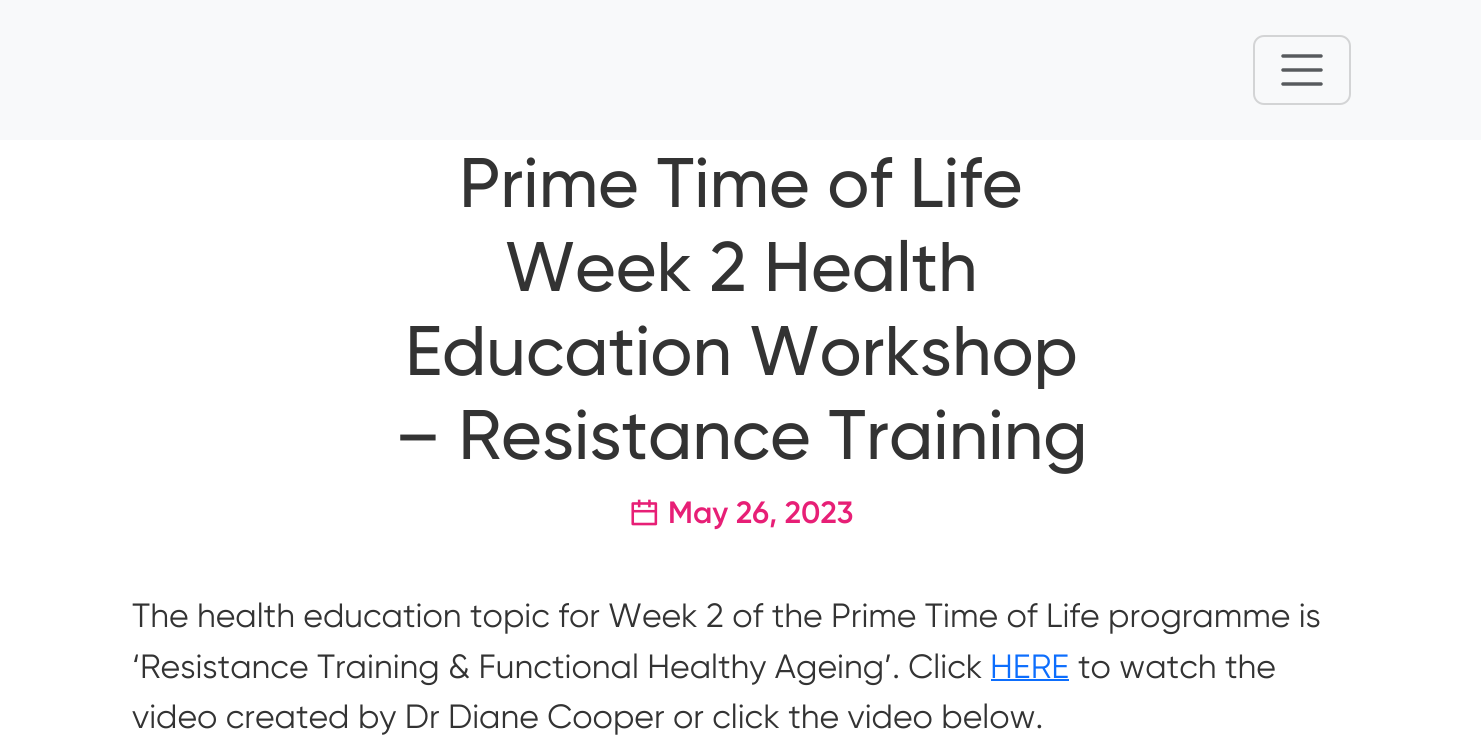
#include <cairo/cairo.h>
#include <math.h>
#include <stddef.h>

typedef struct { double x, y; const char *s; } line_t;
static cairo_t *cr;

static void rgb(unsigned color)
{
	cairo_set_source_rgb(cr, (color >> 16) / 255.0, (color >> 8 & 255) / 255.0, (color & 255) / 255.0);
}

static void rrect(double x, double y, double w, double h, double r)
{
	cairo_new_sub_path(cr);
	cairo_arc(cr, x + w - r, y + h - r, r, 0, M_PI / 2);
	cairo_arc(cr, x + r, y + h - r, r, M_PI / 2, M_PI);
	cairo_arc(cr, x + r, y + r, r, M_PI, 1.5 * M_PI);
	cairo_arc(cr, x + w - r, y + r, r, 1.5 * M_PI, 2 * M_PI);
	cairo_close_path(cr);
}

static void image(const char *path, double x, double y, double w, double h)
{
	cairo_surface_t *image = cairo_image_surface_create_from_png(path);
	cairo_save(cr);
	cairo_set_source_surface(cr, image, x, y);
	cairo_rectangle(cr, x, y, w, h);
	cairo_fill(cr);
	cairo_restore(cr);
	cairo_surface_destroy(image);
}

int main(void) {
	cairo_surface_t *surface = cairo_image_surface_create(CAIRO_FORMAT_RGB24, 1481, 739);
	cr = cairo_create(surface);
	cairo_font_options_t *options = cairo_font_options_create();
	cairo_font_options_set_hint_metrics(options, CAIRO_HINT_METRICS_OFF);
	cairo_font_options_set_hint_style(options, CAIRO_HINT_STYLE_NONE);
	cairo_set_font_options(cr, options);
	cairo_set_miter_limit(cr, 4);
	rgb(0xffffff);
	cairo_paint(cr);
	rgb(0xf8f9fa);
	cairo_rectangle(cr, 0, 0, 1481, 140);
	cairo_fill(cr);
	rrect(1254, 36, 96, 68, 10);
	rgb(0xd3d4d5);
	cairo_stroke(cr);
	cairo_new_path(cr);
	cairo_move_to(cr, 1283, 56);
	cairo_line_to(cr, 1321, 56);
	cairo_move_to(cr, 1283, 70);
	cairo_line_to(cr, 1321, 70);
	cairo_move_to(cr, 1283, 84);
	cairo_line_to(cr, 1321, 84);
	rgb(0x575a5d);
	cairo_set_line_width(cr, 3.5);
	cairo_set_line_cap(cr, CAIRO_LINE_CAP_ROUND);
	cairo_stroke(cr);
	image("img/1.png", 631, 499, 27, 27);
	rgb(0x0d6efd);
	cairo_rectangle(cr, 991, 679, 78, 2);
	cairo_fill(cr);
	cairo_select_font_face(cr, "Gilroy Medium", CAIRO_FONT_SLANT_NORMAL, CAIRO_FONT_WEIGHT_NORMAL);
	cairo_set_font_size(cr, 70);
	rgb(0x333333);
	{
		static const line_t items[] = {
			{459, 207, "Prime Time of Life"},
			{505, 291, "Week 2 Health"},
			{405, 375, "Education Workshop"},
			{395, 459, "– Resistance Training"},
		};
		for (size_t i = 0; i < sizeof items / sizeof *items; i++) {
			cairo_move_to(cr, items[i].x, items[i].y);
			cairo_show_text(cr, items[i].s);
		}
	}
	cairo_select_font_face(cr, "Gilroy SemiBold", CAIRO_FONT_SLANT_NORMAL, CAIRO_FONT_WEIGHT_NORMAL);
	cairo_set_font_size(cr, 30.75);
	rgb(0xe71f76);
	cairo_move_to(cr, 668, 523);
	cairo_show_text(cr, "May 26, 2023");
	cairo_select_font_face(cr, "Gilroy", CAIRO_FONT_SLANT_NORMAL, CAIRO_FONT_WEIGHT_NORMAL);
	cairo_set_font_size(cr, 33.6);
	rgb(0x333333);
	cairo_move_to(cr, 132, 627);
	cairo_show_text(cr, "The health education topic for Week 2 of the Prime Time of Life programme is");
	cairo_move_to(cr, 132, 678);
	cairo_show_text(cr, "‘Resistance Training & Functional Healthy Ageing’. Click");
	rgb(0x0d6efd);
	cairo_move_to(cr, 990, 678);
	cairo_show_text(cr, "HERE");
	rgb(0x333333);
	cairo_move_to(cr, 1078, 678);
	cairo_show_text(cr, "to watch the");
	cairo_move_to(cr, 132, 728);
	cairo_show_text(cr, "video created by Dr Diane Cooper or click the video below.");
	cairo_surface_write_to_png(surface, "page.png");
	cairo_font_options_destroy(options);
	cairo_destroy(cr);
	cairo_surface_destroy(surface);
	return 0;
}
